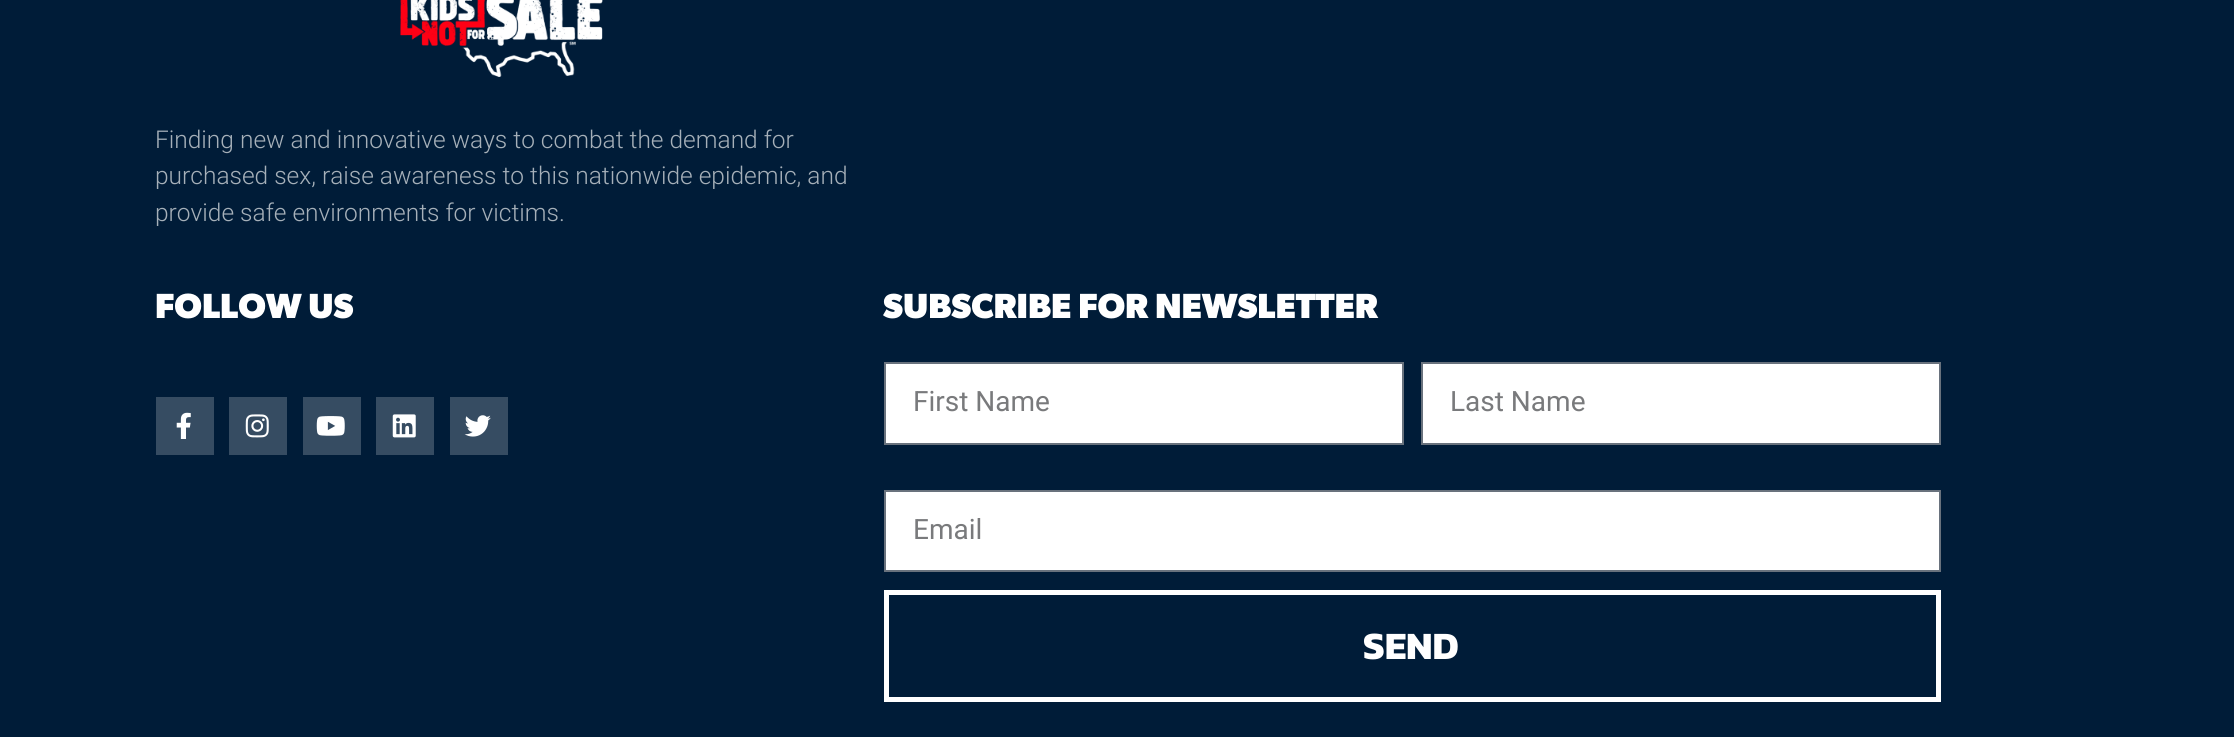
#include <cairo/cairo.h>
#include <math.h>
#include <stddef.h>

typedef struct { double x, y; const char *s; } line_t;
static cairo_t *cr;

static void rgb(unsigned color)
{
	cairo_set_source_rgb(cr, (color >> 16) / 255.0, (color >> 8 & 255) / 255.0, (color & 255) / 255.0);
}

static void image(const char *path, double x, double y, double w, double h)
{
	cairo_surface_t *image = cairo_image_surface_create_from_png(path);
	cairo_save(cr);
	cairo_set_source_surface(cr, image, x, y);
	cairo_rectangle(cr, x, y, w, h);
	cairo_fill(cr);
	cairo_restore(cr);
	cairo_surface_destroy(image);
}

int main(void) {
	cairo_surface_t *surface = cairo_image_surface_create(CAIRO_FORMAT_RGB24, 2234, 737);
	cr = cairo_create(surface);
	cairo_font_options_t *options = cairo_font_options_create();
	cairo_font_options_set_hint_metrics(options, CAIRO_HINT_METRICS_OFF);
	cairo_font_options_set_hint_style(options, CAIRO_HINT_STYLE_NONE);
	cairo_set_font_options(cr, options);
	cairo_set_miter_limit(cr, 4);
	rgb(0x001c38);
	cairo_paint(cr);
	image("img/1.png", 400, 0, 203, 77);
	rgb(0x364c62);
	cairo_rectangle(cr, 156, 397, 58, 58);
	cairo_fill(cr);
	image("img/2.png", 176, 412, 15, 27);
	cairo_rectangle(cr, 229, 397, 58, 58);
	cairo_fill(cr);
	image("img/3.png", 245, 414, 24, 24);
	cairo_rectangle(cr, 303, 397, 58, 58);
	cairo_fill(cr);
	image("img/4.png", 316, 416, 29, 20);
	cairo_rectangle(cr, 376, 397, 58, 58);
	cairo_fill(cr);
	image("img/5.png", 392, 414, 24, 24);
	cairo_rectangle(cr, 450, 397, 58, 58);
	cairo_fill(cr);
	image("img/6.png", 464, 415, 27, 22);
	rgb(0xffffff);
	cairo_rectangle(cr, 885, 363, 518, 81);
	cairo_fill_preserve(cr);
	rgb(0x69727d);
	cairo_stroke(cr);
	rgb(0xffffff);
	cairo_rectangle(cr, 1422, 363, 518, 81);
	cairo_fill_preserve(cr);
	rgb(0x69727d);
	cairo_stroke(cr);
	rgb(0xffffff);
	cairo_rectangle(cr, 885, 491, 1055, 80);
	cairo_fill_preserve(cr);
	rgb(0x69727d);
	cairo_stroke(cr);
	cairo_rectangle(cr, 886.5, 592.5, 1052, 107);
	rgb(0xffffff);
	cairo_set_line_width(cr, 5);
	cairo_stroke(cr);
	cairo_select_font_face(cr, "Roboto Light", CAIRO_FONT_SLANT_NORMAL, CAIRO_FONT_WEIGHT_NORMAL);
	cairo_set_font_size(cr, 24.5);
	rgb(0xa6b0b9);
	{
		static const line_t items[] = {
			{155, 148, "Finding new and innovative ways to combat the demand for"},
			{155, 184, "purchased sex, raise awareness to this nationwide epidemic, and"},
			{155, 221, "provide safe environments for victims."},
		};
		for (size_t i = 0; i < sizeof items / sizeof *items; i++) {
			cairo_move_to(cr, items[i].x, items[i].y);
			cairo_show_text(cr, items[i].s);
		}
	}
	cairo_select_font_face(cr, "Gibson", CAIRO_FONT_SLANT_NORMAL, CAIRO_FONT_WEIGHT_BOLD);
	cairo_set_font_size(cr, 35);
	rgb(0xffffff);
	cairo_move_to(cr, 155, 318);
	cairo_show_text(cr, "FOLLOW US");
	cairo_move_to(cr, 883, 318);
	cairo_show_text(cr, "SUBSCRIBE FOR NEWSLETTER");
	cairo_select_font_face(cr, "Roboto", CAIRO_FONT_SLANT_NORMAL, CAIRO_FONT_WEIGHT_NORMAL);
	cairo_set_font_size(cr, 28);
	rgb(0x797a7c);
	{
		static const line_t items[] = {
			{913, 411, "First Name"},
			{1450, 411, "Last Name"},
			{913, 539, "Email"},
		};
		for (size_t i = 0; i < sizeof items / sizeof *items; i++) {
			cairo_move_to(cr, items[i].x, items[i].y);
			cairo_show_text(cr, items[i].s);
		}
	}
	cairo_select_font_face(cr, "Kanit", CAIRO_FONT_SLANT_NORMAL, CAIRO_FONT_WEIGHT_BOLD);
	cairo_set_font_size(cr, 39);
	rgb(0xffffff);
	cairo_move_to(cr, 1363, 659);
	cairo_show_text(cr, "SEND");
	cairo_surface_write_to_png(surface, "page.png");
	cairo_font_options_destroy(options);
	cairo_destroy(cr);
	cairo_surface_destroy(surface);
	return 0;
}
